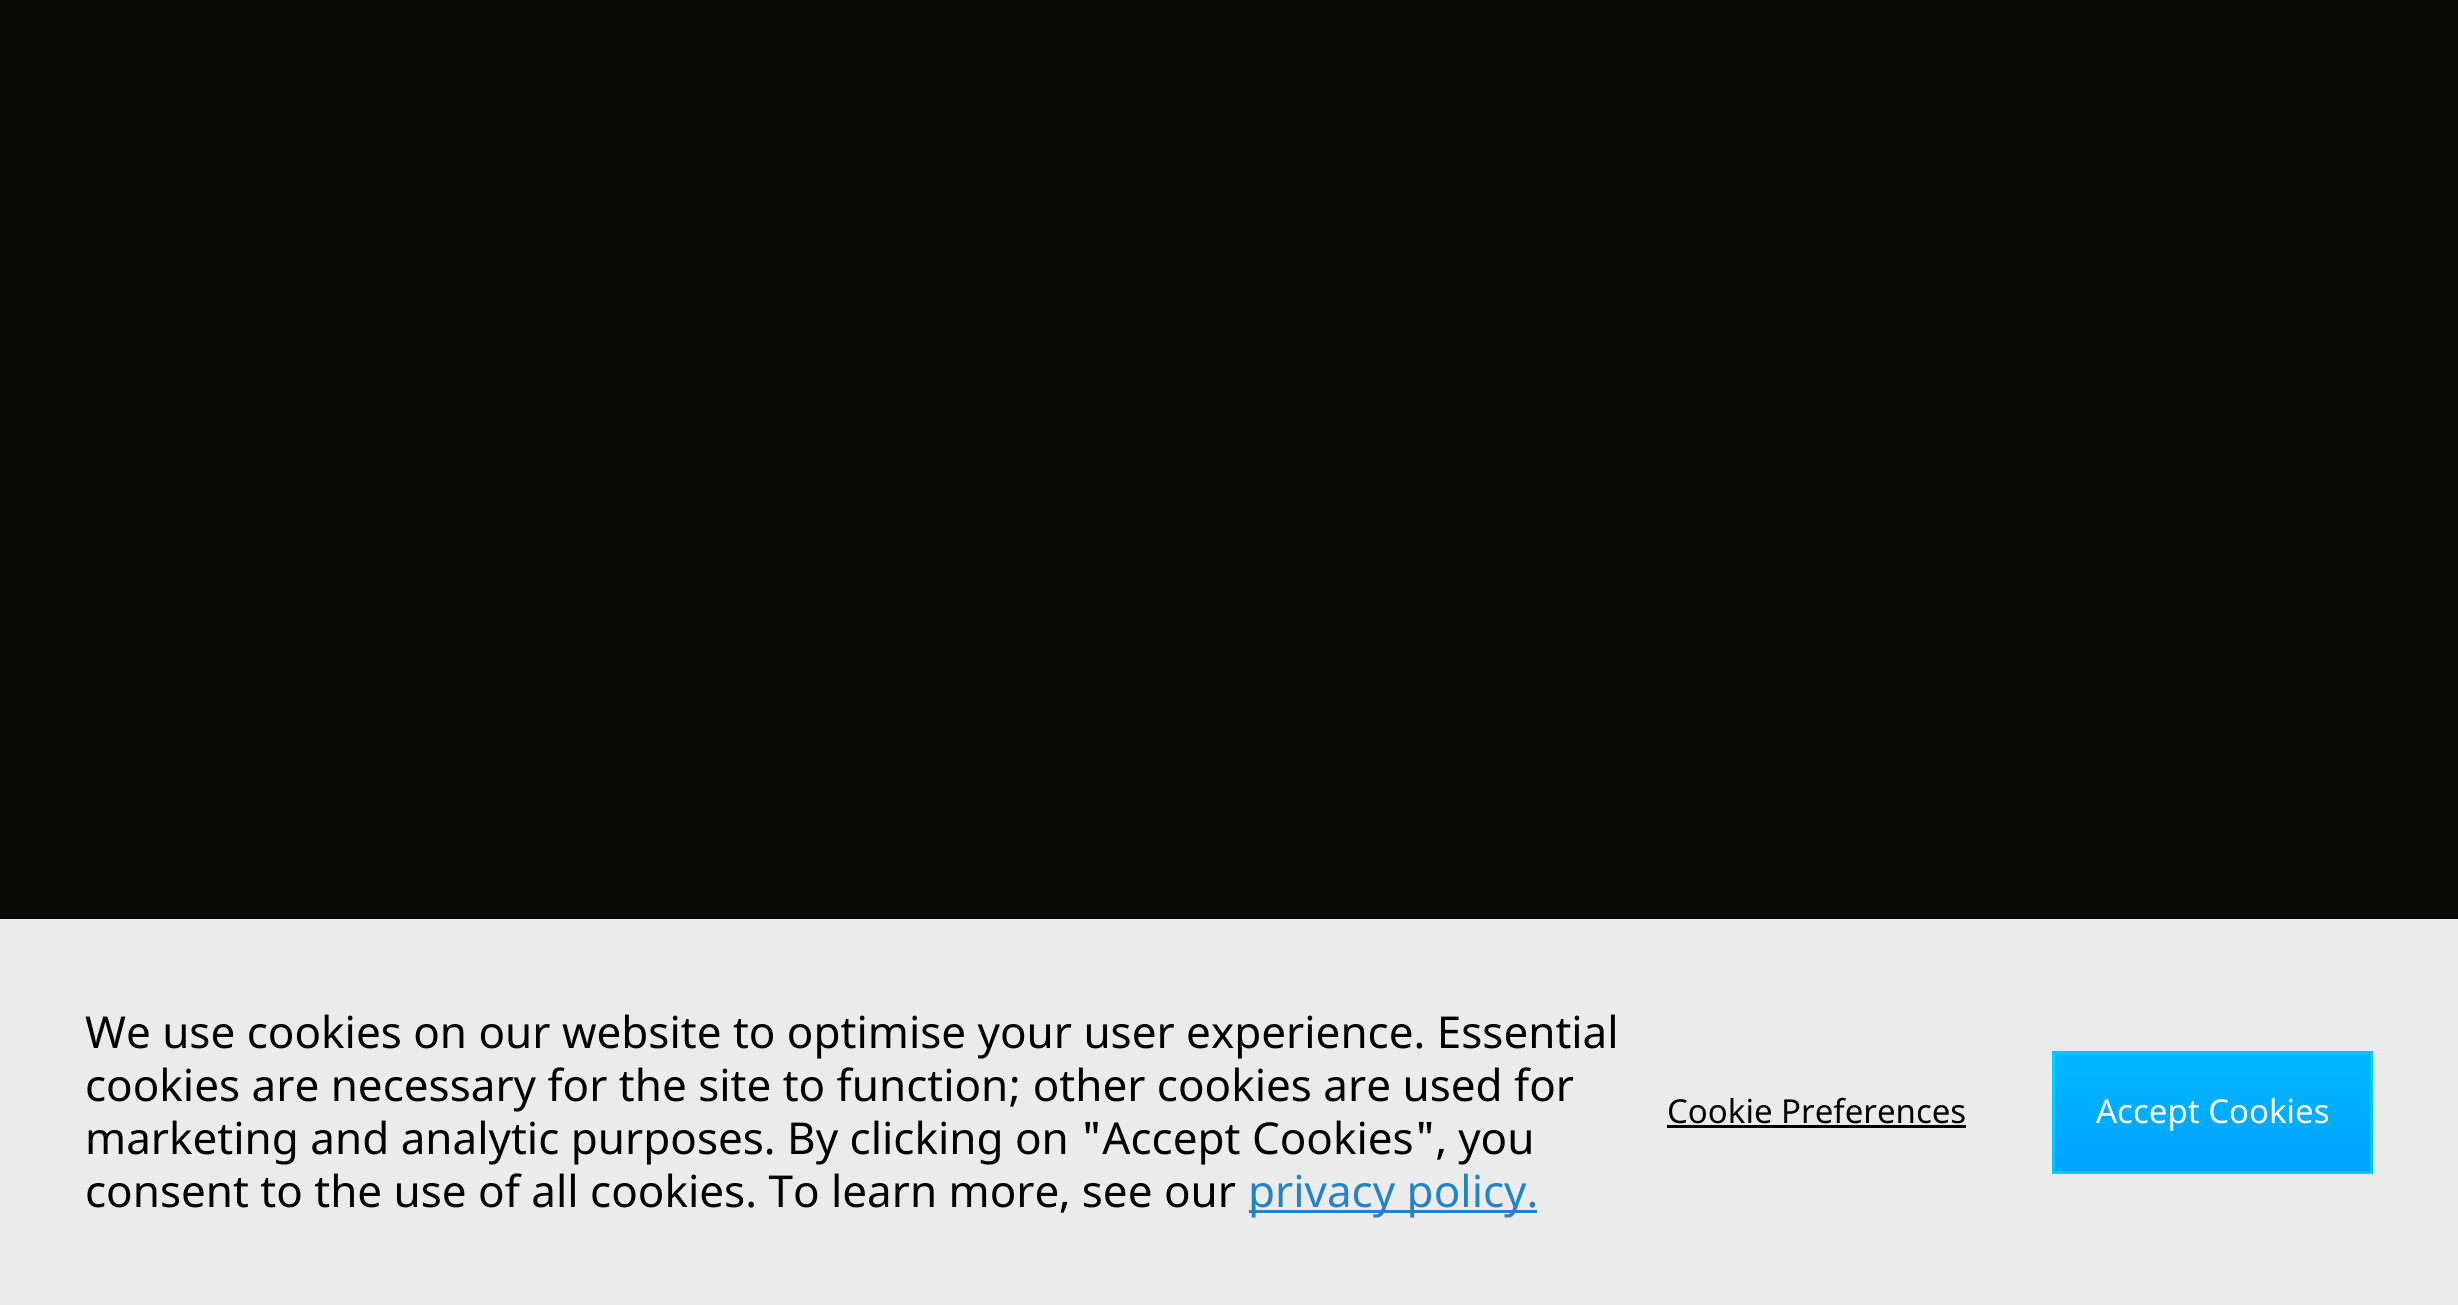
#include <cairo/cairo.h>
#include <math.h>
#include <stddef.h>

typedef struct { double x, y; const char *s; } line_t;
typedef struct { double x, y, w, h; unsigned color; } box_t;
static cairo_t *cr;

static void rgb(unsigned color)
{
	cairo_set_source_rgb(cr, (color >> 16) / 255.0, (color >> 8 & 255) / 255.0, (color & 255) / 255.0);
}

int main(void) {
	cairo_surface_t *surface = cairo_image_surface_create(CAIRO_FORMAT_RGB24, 2458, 1305);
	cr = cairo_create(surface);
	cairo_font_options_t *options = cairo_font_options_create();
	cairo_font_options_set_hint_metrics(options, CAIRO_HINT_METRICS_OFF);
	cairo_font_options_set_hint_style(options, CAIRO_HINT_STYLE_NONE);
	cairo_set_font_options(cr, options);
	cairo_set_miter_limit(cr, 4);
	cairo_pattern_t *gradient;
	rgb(0x090907);
	cairo_paint(cr);
	{
		static const box_t items[] = {
			{0, 919, 2458, 386, 0xebebeb},
			{1249, 1210, 288, 3, 0x2383c5},
			{1667, 1125, 299, 3, 0x000000},
		};
		for (size_t i = 0; i < sizeof items / sizeof *items; i++) {
			rgb(items[i].color);
			cairo_rectangle(cr, items[i].x, items[i].y, items[i].w, items[i].h);
			cairo_fill(cr);
		}
	}
	gradient = cairo_pattern_create_linear(2212, 935, 2212, 1053);
	cairo_pattern_add_color_stop_rgba(gradient, 0, 0, 0.722, 1, 1);
	cairo_pattern_add_color_stop_rgba(gradient, 1, 0, 0.635, 1, 1);
	cairo_set_source(cr, gradient);
	cairo_pattern_destroy(gradient);
	cairo_rectangle(cr, 2052, 1051, 321, 2);
	cairo_fill(cr);
	gradient = cairo_pattern_create_linear(2212, 1053, 2212, 1172);
	cairo_pattern_add_color_stop_rgba(gradient, 0, 0, 0.722, 1, 1);
	cairo_pattern_add_color_stop_rgba(gradient, 1, 0, 0.635, 1, 1);
	cairo_set_source(cr, gradient);
	cairo_pattern_destroy(gradient);
	cairo_rectangle(cr, 2052, 1053, 321, 119);
	cairo_fill(cr);
	gradient = cairo_pattern_create_linear(2212, 1172, 2212, 1290);
	cairo_pattern_add_color_stop_rgba(gradient, 0, 0, 0.722, 1, 1);
	cairo_pattern_add_color_stop_rgba(gradient, 1, 0, 0.635, 1, 1);
	cairo_set_source(cr, gradient);
	cairo_pattern_destroy(gradient);
	cairo_rectangle(cr, 2052, 1172, 321, 2);
	cairo_fill(cr);
	cairo_rectangle(cr, 2053.5, 1052.5, 318, 120);
	cairo_set_source_rgba(cr, 0, 0.973, 1, 0.4);
	cairo_set_line_width(cr, 3);
	cairo_stroke(cr);
	cairo_select_font_face(cr, "Noto Sans", CAIRO_FONT_SLANT_NORMAL, CAIRO_FONT_WEIGHT_NORMAL);
	cairo_set_font_size(cr, 44);
	rgb(0x000000);
	{
		static const line_t items[] = {
			{85, 1048, "We use cookies on our website to optimise your user experience. Essential"},
			{85, 1101, "cookies are necessary for the site to function; other cookies are used for"},
			{85, 1154, "marketing and analytic purposes. By clicking on \"Accept Cookies\", you"},
			{85, 1207, "consent to the use of all cookies. To learn more, see our"},
		};
		for (size_t i = 0; i < sizeof items / sizeof *items; i++) {
			cairo_move_to(cr, items[i].x, items[i].y);
			cairo_show_text(cr, items[i].s);
		}
	}
	rgb(0x2383c5);
	cairo_move_to(cr, 1248, 1207);
	cairo_show_text(cr, "privacy policy.");
	cairo_set_font_size(cr, 33);
	rgb(0x000000);
	cairo_move_to(cr, 1667, 1123);
	cairo_show_text(cr, "Cookie Preferences");
	rgb(0xffffff);
	cairo_move_to(cr, 2096, 1123);
	cairo_show_text(cr, "Accept Cookies");
	cairo_surface_write_to_png(surface, "page.png");
	cairo_font_options_destroy(options);
	cairo_destroy(cr);
	cairo_surface_destroy(surface);
	return 0;
}
